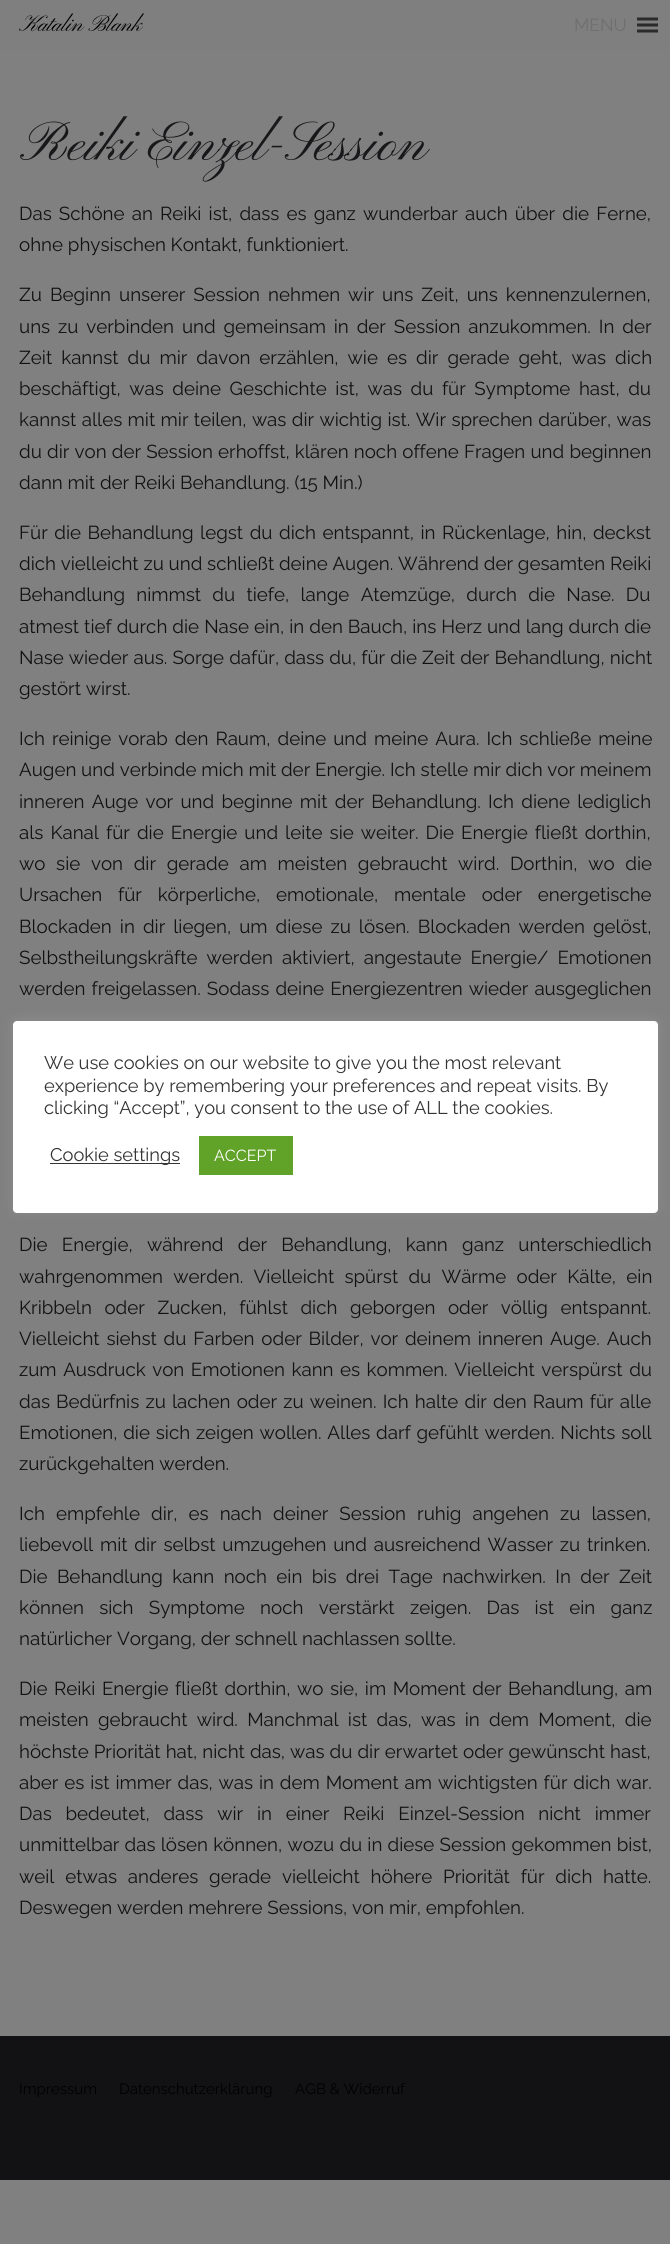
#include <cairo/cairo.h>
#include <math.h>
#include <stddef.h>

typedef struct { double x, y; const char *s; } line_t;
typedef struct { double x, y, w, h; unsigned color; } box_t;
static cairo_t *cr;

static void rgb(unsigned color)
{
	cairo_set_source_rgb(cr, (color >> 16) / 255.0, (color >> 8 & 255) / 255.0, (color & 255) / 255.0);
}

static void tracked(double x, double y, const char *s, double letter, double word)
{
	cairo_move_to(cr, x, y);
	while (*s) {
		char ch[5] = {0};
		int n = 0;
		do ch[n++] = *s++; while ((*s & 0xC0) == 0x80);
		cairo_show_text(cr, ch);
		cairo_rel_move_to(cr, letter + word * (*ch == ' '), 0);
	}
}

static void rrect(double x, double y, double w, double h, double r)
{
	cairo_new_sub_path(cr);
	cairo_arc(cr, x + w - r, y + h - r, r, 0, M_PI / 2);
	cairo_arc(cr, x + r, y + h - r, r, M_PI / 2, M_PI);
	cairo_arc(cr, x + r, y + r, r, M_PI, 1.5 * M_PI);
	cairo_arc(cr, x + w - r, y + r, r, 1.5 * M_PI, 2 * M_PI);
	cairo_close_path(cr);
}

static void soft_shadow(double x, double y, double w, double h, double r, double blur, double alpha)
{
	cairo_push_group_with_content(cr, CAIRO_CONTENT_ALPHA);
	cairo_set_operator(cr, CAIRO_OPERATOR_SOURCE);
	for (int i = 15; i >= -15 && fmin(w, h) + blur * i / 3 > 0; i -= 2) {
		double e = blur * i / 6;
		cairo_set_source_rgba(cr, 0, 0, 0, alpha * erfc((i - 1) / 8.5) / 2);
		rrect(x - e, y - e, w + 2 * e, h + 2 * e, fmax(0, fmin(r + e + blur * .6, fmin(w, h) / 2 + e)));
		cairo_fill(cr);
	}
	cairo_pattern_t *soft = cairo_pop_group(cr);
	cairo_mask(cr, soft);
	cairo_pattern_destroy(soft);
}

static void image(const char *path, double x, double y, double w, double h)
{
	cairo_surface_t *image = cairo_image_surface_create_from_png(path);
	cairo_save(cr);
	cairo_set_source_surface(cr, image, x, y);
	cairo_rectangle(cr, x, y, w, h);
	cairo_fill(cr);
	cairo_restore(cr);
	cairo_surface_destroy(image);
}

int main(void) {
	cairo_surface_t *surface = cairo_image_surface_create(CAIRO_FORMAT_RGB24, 670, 2244);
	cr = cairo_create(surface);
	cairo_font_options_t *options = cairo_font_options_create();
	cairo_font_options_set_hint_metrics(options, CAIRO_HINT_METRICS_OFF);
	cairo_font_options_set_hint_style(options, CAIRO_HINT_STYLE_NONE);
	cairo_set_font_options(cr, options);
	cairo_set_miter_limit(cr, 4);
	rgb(0x808080);
	cairo_paint(cr);
	cairo_set_source_rgba(cr, 0.502, 0.502, 0.502, 0.1);
	rrect(0, 0, 670, 50, 2.5);
	cairo_fill(cr);
	image("img/1.png", 637, 17, 21, 16);
	rgb(0xacabab);
	soft_shadow(13, 1020, 645, 191, 4, 6, 0.3);
	rgb(0xffffff);
	rrect(13, 1021, 645, 192, 4);
	cairo_fill(cr);
	{
		static const box_t items[] = {
			{50, 1163, 130, 1, 0x333333},
			{199, 1136, 94, 39, 0x61a229},
			{0, 2036, 670, 144, 0x121215},
		};
		for (size_t i = 0; i < sizeof items / sizeof *items; i++) {
			rgb(items[i].color);
			cairo_rectangle(cr, items[i].x, items[i].y, items[i].w, items[i].h);
			cairo_fill(cr);
		}
	}
	cairo_select_font_face(cr, "Pinyon Script", CAIRO_FONT_SLANT_NORMAL, CAIRO_FONT_WEIGHT_NORMAL);
	cairo_set_font_size(cr, 22.5);
	rgb(0x000000);
	cairo_move_to(cr, 19, 31);
	cairo_show_text(cr, "Katalin Blank");
	cairo_select_font_face(cr, "Raleway", CAIRO_FONT_SLANT_NORMAL, CAIRO_FONT_WEIGHT_NORMAL);
	cairo_set_font_size(cr, 17.5);
	rgb(0x6f6f6f);
	cairo_move_to(cr, 574, 31);
	cairo_show_text(cr, "MENU");
	cairo_select_font_face(cr, "Pinyon Script", CAIRO_FONT_SLANT_NORMAL, CAIRO_FONT_WEIGHT_NORMAL);
	cairo_set_font_size(cr, 56.25);
	rgb(0x18181b);
	cairo_move_to(cr, 19, 160);
	cairo_show_text(cr, "Reiki Einzel-Session");
	cairo_select_font_face(cr, "Raleway", CAIRO_FONT_SLANT_NORMAL, CAIRO_FONT_WEIGHT_NORMAL);
	cairo_set_font_size(cr, 18.75);
	rgb(0x111111);
	tracked(19, 220, "Das Schöne an Reiki ist, dass es ganz wunderbar auch über die Ferne,", 0, 2.4);
	cairo_move_to(cr, 19, 251);
	cairo_show_text(cr, "ohne physischen Kontakt, funktioniert.");
	tracked(19, 301, "Zu Beginn unserer Session nehmen wir uns Zeit, uns kennenzulernen,", 0, 3.25);
	tracked(19, 333, "uns zu verbinden und gemeinsam in der Session anzukommen. In der", 0, 3.1);
	tracked(19, 364, "Zeit kannst du mir davon erzählen, wie es dir gerade geht, was dich", 0, 4.25);
	tracked(19, 395, "beschäftigt, was deine Geschichte ist, was du für Symptome hast, du", 0, 3.75);
	tracked(19, 426, "kannst alles mit mir teilen, was dir wichtig ist. Wir sprechen darüber, was", 0, 0.6);
	tracked(19, 458, "du dir von der Session erhoffst, klären noch offene Fragen und beginnen", 0, 0.4);
	cairo_move_to(cr, 19, 489);
	cairo_show_text(cr, "dann mit der Reiki Behandlung. (15 Min.)");
	tracked(19, 539, "Für die Behandlung legst du dich entspannt, in Rückenlage, hin, deckst", 0, 1.75);
	cairo_move_to(cr, 19, 570);
	cairo_show_text(cr, "dich vielleicht zu und schließt deine Augen. Während der gesamten Reiki");
	tracked(19, 601, "Behandlung nimmst du tiefe, lange Atemzüge, durch die Nase. Du", 0, 6.5);
	tracked(19, 633, "atmest tief durch die Nase ein, in den Bauch, ins Herz und lang durch die", 0, 0.25);
	tracked(19, 664, "Nase wieder aus. Sorge dafür, dass du, für die Zeit der Behandlung, nicht", 0, 0.25);
	cairo_move_to(cr, 19, 695);
	cairo_show_text(cr, "gestört wirst.");
	tracked(19, 745, "Ich reinige vorab den Raum, deine und meine Aura. Ich schließe meine", 0, 2.25);
	cairo_move_to(cr, 19, 776);
	cairo_show_text(cr, "Augen und verbinde mich mit der Energie. Ich stelle mir dich vor meinem");
	tracked(19, 808, "inneren Auge vor und beginne mit der Behandlung. Ich diene lediglich", 0, 2.5);
	tracked(19, 839, "als Kanal für die Energie und leite sie weiter. Die Energie fließt dorthin,", 0, 2.25);
	tracked(19, 870, "wo sie von dir gerade am meisten gebraucht wird. Dorthin, wo die", 0, 5.9);
	tracked(19, 901, "Ursachen für körperliche, emotionale, mentale oder energetische", 0, 11);
	tracked(19, 933, "Blockaden in dir liegen, um diese zu lösen. Blockaden werden gelöst,", 0, 3.25);
	tracked(19, 964, "Selbstheilungskräfte werden aktiviert, angestaute Energie/ Emotionen", 0, 4.25);
	tracked(19, 995, "werden freigelassen. Sodass deine Energiezentren wieder ausgeglichen", 0, 1.25);
	tracked(19, 1251, "Die Energie, während der Behandlung, kann ganz unterschiedlich", 0, 9.5);
	tracked(19, 1283, "wahrgenommen werden. Vielleicht spürst du Wärme oder Kälte, ein", 0, 5.5);
	tracked(19, 1314, "Kribbeln oder Zucken, fühlst dich geborgen oder völlig entspannt.", 0, 7.75);
	tracked(19, 1345, "Vielleicht siehst du Farben oder Bilder, vor deinem inneren Auge. Auch", 0, 2);
	tracked(19, 1376, "zum Ausdruck von Emotionen kann es kommen. Vielleicht verspürst du", 0, 1.75);
	tracked(19, 1408, "das Bedürfnis zu lachen oder zu weinen. Ich halte dir den Raum für alle", 0, 1.4);
	tracked(19, 1439, "Emotionen, die sich zeigen wollen. Alles darf gefühlt werden. Nichts soll", 0, 1);
	cairo_move_to(cr, 19, 1470);
	cairo_show_text(cr, "zurückgehalten werden.");
	tracked(19, 1520, "Ich empfehle dir, es nach deiner Session ruhig angehen zu lassen,", 0, 6.25);
	tracked(19, 1551, "liebevoll mit dir selbst umzugehen und ausreichend Wasser zu trinken.", 0, 2);
	tracked(19, 1583, "Die Behandlung kann noch ein bis drei Tage nachwirken. In der Zeit", 0, 4.6);
	tracked(19, 1614, "können sich Symptome noch verstärkt zeigen. Das ist ein ganz", 0, 10.5);
	cairo_move_to(cr, 19, 1645);
	cairo_show_text(cr, "natürlicher Vorgang, der schnell nachlassen sollte.");
	tracked(19, 1695, "Die Reiki Energie fließt dorthin, wo sie, im Moment der Behandlung, am", 0, 1.75);
	tracked(19, 1726, "meisten gebraucht wird. Manchmal ist das, was in dem Moment, die", 0, 4.5);
	tracked(19, 1758, "höchste Priorität hat, nicht das, was du dir erwartet oder gewünscht hast,", 0, 0.25);
	tracked(19, 1789, "aber es ist immer das, was in dem Moment am wichtigsten für dich war.", 0, 1.1);
	tracked(19, 1820, "Das bedeutet, dass wir in einer Reiki Einzel-Session nicht immer", 0, 9);
	tracked(19, 1851, "unmittelbar das lösen können, wozu du in diese Session gekommen bist,", 0, 0.4);
	tracked(19, 1883, "weil etwas anderes gerade vielleicht höhere Priorität für dich hatte.", 0, 6);
	cairo_move_to(cr, 19, 1914);
	cairo_show_text(cr, "Deswegen werden mehrere Sessions, von mir, empfohlen.");
	cairo_set_font_size(cr, 18.3);
	rgb(0x333333);
	{
		static const line_t items[] = {
			{44, 1069, "We use cookies on our website to give you the most relevant"},
			{44, 1092, "experience by remembering your preferences and repeat visits. By"},
			{44, 1114, "clicking “Accept”, you consent to the use of ALL the cookies."},
			{50, 1161, "Cookie settings"},
		};
		for (size_t i = 0; i < sizeof items / sizeof *items; i++) {
			cairo_move_to(cr, items[i].x, items[i].y);
			cairo_show_text(cr, items[i].s);
		}
	}
	cairo_set_font_size(cr, 16);
	rgb(0xffffff);
	cairo_move_to(cr, 214, 1161);
	cairo_show_text(cr, "ACCEPT");
	cairo_set_font_size(cr, 15);
	rgb(0x000000);
	{
		static const line_t items[] = {
			{19, 2094, "Impressum"},
			{119, 2094, "Datenschutzerklärung"},
			{295, 2094, "AGB & Widerruf"},
		};
		for (size_t i = 0; i < sizeof items / sizeof *items; i++) {
			cairo_move_to(cr, items[i].x, items[i].y);
			cairo_show_text(cr, items[i].s);
		}
	}
	cairo_surface_write_to_png(surface, "page.png");
	cairo_font_options_destroy(options);
	cairo_destroy(cr);
	cairo_surface_destroy(surface);
	return 0;
}
